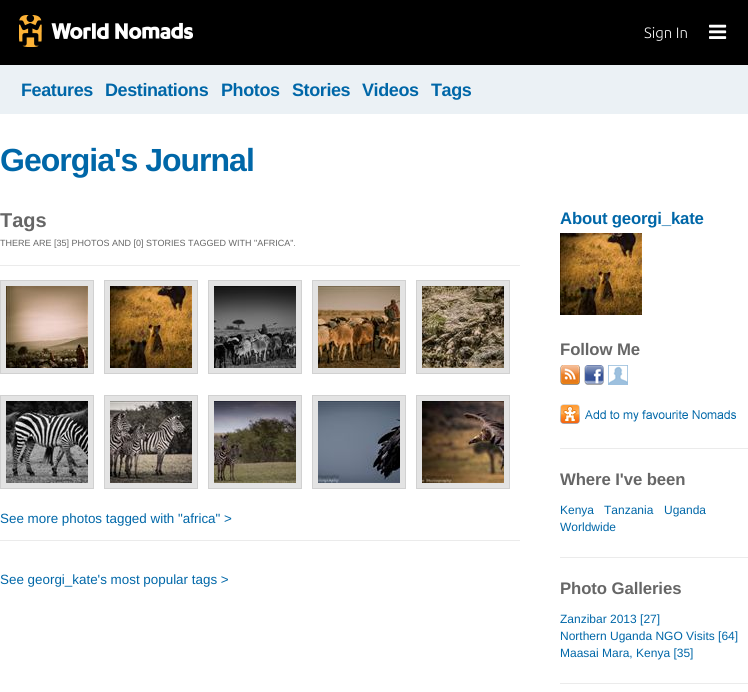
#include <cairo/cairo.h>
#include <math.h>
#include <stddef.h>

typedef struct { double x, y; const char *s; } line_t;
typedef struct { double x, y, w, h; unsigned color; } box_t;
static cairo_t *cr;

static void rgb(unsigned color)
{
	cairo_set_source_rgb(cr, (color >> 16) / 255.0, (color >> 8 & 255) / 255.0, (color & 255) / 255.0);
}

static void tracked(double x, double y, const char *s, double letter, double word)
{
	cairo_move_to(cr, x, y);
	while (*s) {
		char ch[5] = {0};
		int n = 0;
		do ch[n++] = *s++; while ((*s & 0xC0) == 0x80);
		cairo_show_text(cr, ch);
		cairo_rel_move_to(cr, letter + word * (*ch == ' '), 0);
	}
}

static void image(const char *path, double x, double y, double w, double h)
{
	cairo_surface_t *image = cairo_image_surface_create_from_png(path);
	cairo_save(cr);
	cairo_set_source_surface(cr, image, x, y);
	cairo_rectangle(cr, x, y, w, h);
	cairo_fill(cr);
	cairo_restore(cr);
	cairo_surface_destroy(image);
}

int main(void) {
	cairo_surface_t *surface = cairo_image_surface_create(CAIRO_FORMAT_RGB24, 748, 692);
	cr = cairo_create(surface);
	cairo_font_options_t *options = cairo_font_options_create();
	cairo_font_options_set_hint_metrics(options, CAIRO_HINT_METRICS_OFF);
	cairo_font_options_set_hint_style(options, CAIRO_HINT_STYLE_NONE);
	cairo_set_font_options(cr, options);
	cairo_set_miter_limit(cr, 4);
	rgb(0xffffff);
	cairo_paint(cr);
	rgb(0x000000);
	cairo_rectangle(cr, 0, 0, 748, 65);
	cairo_fill(cr);
	image("img/1.png", 19, 15, 174, 32);
	image("img/2.png", 709, 24, 18, 15);
	rgb(0xebf1f5);
	cairo_rectangle(cr, 0, 65, 748, 49);
	cairo_fill(cr);
	rgb(0xebebeb);
	cairo_rectangle(cr, 0, 265, 520, 1);
	cairo_fill(cr);
	rgb(0xe3e3e3);
	cairo_rectangle(cr, 0.5, 280.5, 93, 93);
	cairo_fill_preserve(cr);
	rgb(0xd1d1d1);
	cairo_set_line_width(cr, 1);
	cairo_stroke(cr);
	image("img/3.png", 6, 286, 82, 82);
	rgb(0xe3e3e3);
	cairo_rectangle(cr, 104.5, 280.5, 93, 93);
	cairo_fill_preserve(cr);
	rgb(0xd1d1d1);
	cairo_stroke(cr);
	image("img/4.png", 110, 286, 82, 82);
	rgb(0xe3e3e3);
	cairo_rectangle(cr, 208.5, 280.5, 93, 93);
	cairo_fill_preserve(cr);
	rgb(0xd1d1d1);
	cairo_stroke(cr);
	image("img/5.png", 214, 286, 82, 82);
	rgb(0xe3e3e3);
	cairo_rectangle(cr, 312.5, 280.5, 93, 93);
	cairo_fill_preserve(cr);
	rgb(0xd1d1d1);
	cairo_stroke(cr);
	image("img/6.png", 318, 286, 82, 82);
	rgb(0xe3e3e3);
	cairo_rectangle(cr, 416.5, 280.5, 93, 93);
	cairo_fill_preserve(cr);
	rgb(0xd1d1d1);
	cairo_stroke(cr);
	image("img/7.png", 422, 286, 82, 82);
	rgb(0xe3e3e3);
	cairo_rectangle(cr, 0.5, 395.5, 93, 93);
	cairo_fill_preserve(cr);
	rgb(0xd1d1d1);
	cairo_stroke(cr);
	image("img/8.png", 6, 401, 82, 82);
	rgb(0xe3e3e3);
	cairo_rectangle(cr, 104.5, 395.5, 93, 93);
	cairo_fill_preserve(cr);
	rgb(0xd1d1d1);
	cairo_stroke(cr);
	image("img/9.png", 110, 401, 82, 82);
	rgb(0xe3e3e3);
	cairo_rectangle(cr, 208.5, 395.5, 93, 93);
	cairo_fill_preserve(cr);
	rgb(0xd1d1d1);
	cairo_stroke(cr);
	image("img/10.png", 214, 401, 82, 82);
	rgb(0xe3e3e3);
	cairo_rectangle(cr, 312.5, 395.5, 93, 93);
	cairo_fill_preserve(cr);
	rgb(0xd1d1d1);
	cairo_stroke(cr);
	image("img/11.png", 318, 401, 82, 82);
	rgb(0xe3e3e3);
	cairo_rectangle(cr, 416.5, 395.5, 93, 93);
	cairo_fill_preserve(cr);
	rgb(0xd1d1d1);
	cairo_stroke(cr);
	image("img/12.png", 422, 401, 82, 82);
	rgb(0xebebeb);
	cairo_rectangle(cr, 0, 540, 520, 1);
	cairo_fill(cr);
	image("img/4.png", 560, 233, 82, 82);
	image("img/13.png", 560, 365, 20, 20);
	image("img/14.png", 584, 365, 20, 20);
	image("img/15.png", 608, 365, 20, 20);
	image("img/16.png", 560, 404, 176, 20);
	{
		static const box_t items[] = {
			{560, 448, 188, 1, 0xebebeb},
			{560, 557, 188, 1, 0xebebeb},
			{560, 683, 188, 1, 0xebebeb},
		};
		for (size_t i = 0; i < sizeof items / sizeof *items; i++) {
			rgb(items[i].color);
			cairo_rectangle(cr, items[i].x, items[i].y, items[i].w, items[i].h);
			cairo_fill(cr);
		}
	}
	cairo_select_font_face(cr, "Ubuntu Light", CAIRO_FONT_SLANT_NORMAL, CAIRO_FONT_WEIGHT_NORMAL);
	cairo_set_font_size(cr, 15);
	rgb(0xffffff);
	cairo_move_to(cr, 644, 38);
	cairo_show_text(cr, "Sign In");
	cairo_select_font_face(cr, "Liberation Sans", CAIRO_FONT_SLANT_NORMAL, CAIRO_FONT_WEIGHT_BOLD);
	cairo_set_font_size(cr, 18);
	rgb(0x0067a8);
	{
		static const line_t items[] = {
			{21, 96, "Features"},
			{105, 96, "Destinations"},
			{221, 96, "Photos"},
			{292, 96, "Stories"},
			{362, 96, "Videos"},
			{431, 96, "Tags"},
		};
		for (size_t i = 0; i < sizeof items / sizeof *items; i++) {
			tracked(items[i].x, items[i].y, items[i].s, -0.4, 0);
		}
	}
	cairo_set_font_size(cr, 32);
	tracked(0, 171, "Georgia's Journal", -1, 0);
	cairo_set_font_size(cr, 20);
	rgb(0x666666);
	cairo_move_to(cr, 0, 227);
	cairo_show_text(cr, "Tags");
	cairo_select_font_face(cr, "Liberation Sans", CAIRO_FONT_SLANT_NORMAL, CAIRO_FONT_WEIGHT_NORMAL);
	cairo_set_font_size(cr, 9);
	cairo_move_to(cr, 0, 246);
	cairo_show_text(cr, "THERE ARE [35] PHOTOS AND [0] STORIES TAGGED WITH \"AFRICA\".");
	cairo_set_font_size(cr, 13.4);
	rgb(0x0067a8);
	cairo_move_to(cr, 0, 523);
	cairo_show_text(cr, "See more photos tagged with \"africa\" >");
	cairo_move_to(cr, 0, 584);
	cairo_show_text(cr, "See georgi_kate's most popular tags >");
	cairo_select_font_face(cr, "Liberation Sans", CAIRO_FONT_SLANT_NORMAL, CAIRO_FONT_WEIGHT_BOLD);
	cairo_set_font_size(cr, 16.75);
	tracked(560, 224, "About georgi_kate", -0.2, 0);
	rgb(0x666666);
	tracked(560, 355, "Follow Me", -0.1, 0);
	tracked(560, 485, "Where I've been", -0.1, 0);
	cairo_select_font_face(cr, "Liberation Sans", CAIRO_FONT_SLANT_NORMAL, CAIRO_FONT_WEIGHT_NORMAL);
	cairo_set_font_size(cr, 12);
	rgb(0x0067a8);
	{
		static const line_t items[] = {
			{560, 514, "Kenya"},
			{604, 514, "Tanzania"},
			{664, 514, "Uganda"},
			{560, 531, "Worldwide"},
		};
		for (size_t i = 0; i < sizeof items / sizeof *items; i++) {
			cairo_move_to(cr, items[i].x, items[i].y);
			cairo_show_text(cr, items[i].s);
		}
	}
	cairo_select_font_face(cr, "Liberation Sans", CAIRO_FONT_SLANT_NORMAL, CAIRO_FONT_WEIGHT_BOLD);
	cairo_set_font_size(cr, 16.75);
	rgb(0x666666);
	tracked(560, 594, "Photo Galleries", -0.1, 0);
	cairo_select_font_face(cr, "Liberation Sans", CAIRO_FONT_SLANT_NORMAL, CAIRO_FONT_WEIGHT_NORMAL);
	cairo_set_font_size(cr, 12);
	rgb(0x0067a8);
	{
		static const line_t items[] = {
			{560, 623, "Zanzibar 2013 [27]"},
			{560, 640, "Northern Uganda NGO Visits [64]"},
			{560, 657, "Maasai Mara, Kenya [35]"},
		};
		for (size_t i = 0; i < sizeof items / sizeof *items; i++) {
			cairo_move_to(cr, items[i].x, items[i].y);
			cairo_show_text(cr, items[i].s);
		}
	}
	cairo_surface_write_to_png(surface, "page.png");
	cairo_font_options_destroy(options);
	cairo_destroy(cr);
	cairo_surface_destroy(surface);
	return 0;
}
